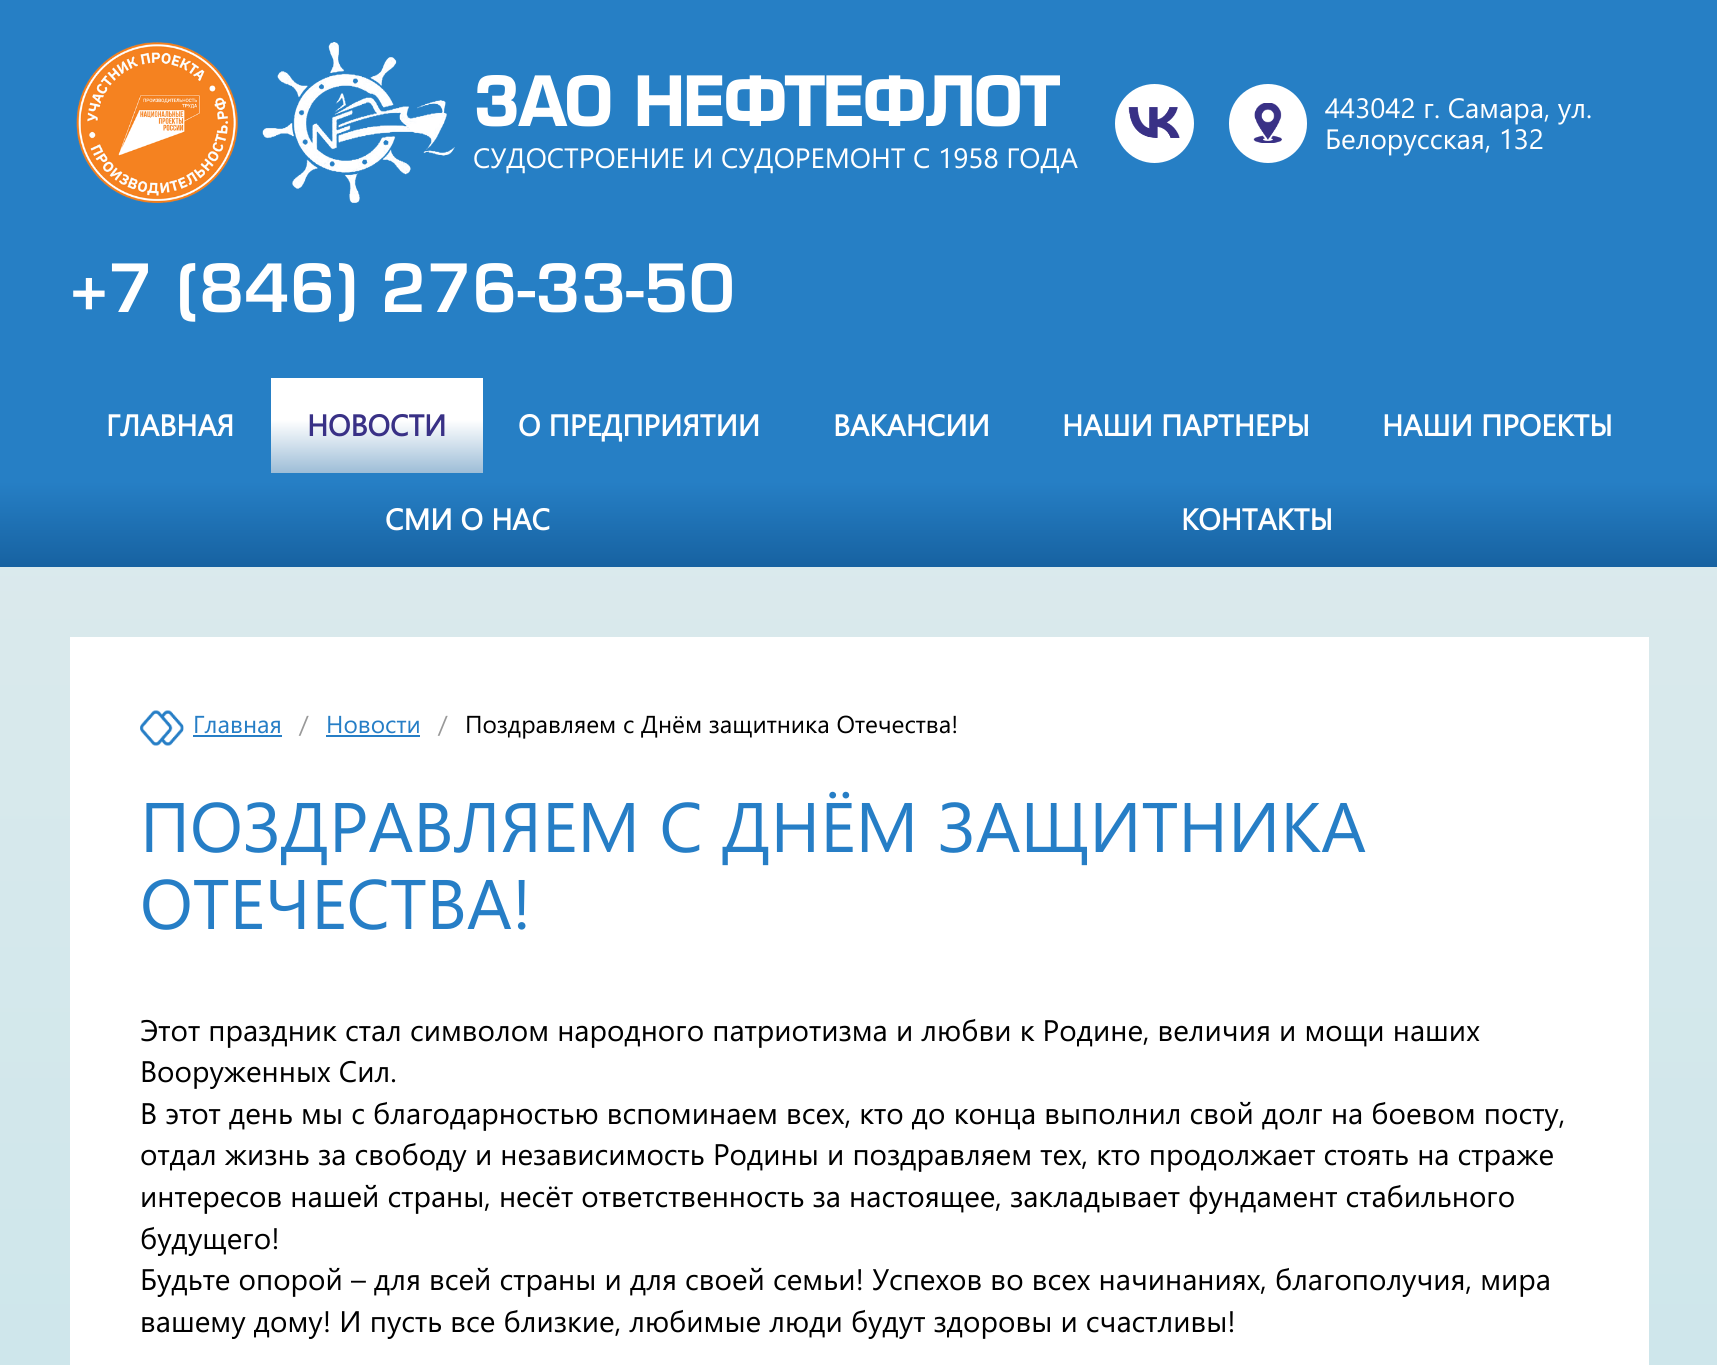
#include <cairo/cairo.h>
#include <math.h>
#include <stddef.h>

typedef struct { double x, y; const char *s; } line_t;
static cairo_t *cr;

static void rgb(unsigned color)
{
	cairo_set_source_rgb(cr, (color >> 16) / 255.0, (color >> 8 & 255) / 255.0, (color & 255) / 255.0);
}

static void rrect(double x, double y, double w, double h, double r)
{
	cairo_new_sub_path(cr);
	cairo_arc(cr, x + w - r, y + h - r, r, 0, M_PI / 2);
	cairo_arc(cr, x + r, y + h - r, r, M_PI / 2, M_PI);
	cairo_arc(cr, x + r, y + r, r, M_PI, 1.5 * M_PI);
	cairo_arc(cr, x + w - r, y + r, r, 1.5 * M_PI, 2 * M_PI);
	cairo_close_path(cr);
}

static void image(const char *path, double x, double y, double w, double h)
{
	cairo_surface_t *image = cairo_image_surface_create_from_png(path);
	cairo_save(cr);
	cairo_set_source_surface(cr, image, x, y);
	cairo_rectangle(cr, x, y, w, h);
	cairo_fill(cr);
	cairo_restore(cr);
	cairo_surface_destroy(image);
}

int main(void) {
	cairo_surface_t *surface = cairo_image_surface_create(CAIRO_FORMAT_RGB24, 1717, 1365);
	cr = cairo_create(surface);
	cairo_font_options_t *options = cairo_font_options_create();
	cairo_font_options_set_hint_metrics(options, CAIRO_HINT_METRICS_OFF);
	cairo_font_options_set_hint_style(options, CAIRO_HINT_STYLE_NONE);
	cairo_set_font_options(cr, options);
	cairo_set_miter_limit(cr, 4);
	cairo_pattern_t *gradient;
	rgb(0xffffff);
	cairo_paint(cr);
	gradient = cairo_pattern_create_linear(859, 0, 859, 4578);
	cairo_pattern_add_color_stop_rgba(gradient, 0, 0.89, 0.925, 0.933, 1);
	cairo_pattern_add_color_stop_rgba(gradient, 1, 0.616, 0.851, 0.89, 1);
	cairo_set_source(cr, gradient);
	cairo_pattern_destroy(gradient);
	cairo_rectangle(cr, 0, 567, 1717, 798);
	cairo_fill(cr);
	gradient = cairo_pattern_create_linear(859, 567, 859, 0);
	cairo_pattern_add_color_stop_rgba(gradient, 0, 0.09, 0.384, 0.631, 1);
	cairo_pattern_add_color_stop_rgba(gradient, 0.15, 0.149, 0.498, 0.773, 1);
	cairo_set_source(cr, gradient);
	cairo_pattern_destroy(gradient);
	cairo_rectangle(cr, 0, 0, 1717, 567);
	cairo_fill(cr);
	image("img/1.png", 76, 42, 379, 161);
	rgb(0xffffff);
	cairo_arc(cr, 1154.5, 123.5, 39.5, 0, 2 * M_PI);
	cairo_fill(cr);
	image("img/2.png", 1128, 107, 52, 31);
	rrect(1229, 84, 78, 79, 39);
	cairo_fill(cr);
	image("img/3.png", 1253, 103, 29, 40);
	gradient = cairo_pattern_create_linear(377, 473, 377, 378);
	cairo_pattern_add_color_stop_rgba(gradient, 0, 0.616, 0.741, 0.843, 1);
	cairo_pattern_add_color_stop_rgba(gradient, 0.56, 1, 1, 1, 1);
	cairo_set_source(cr, gradient);
	cairo_pattern_destroy(gradient);
	cairo_rectangle(cr, 271, 378, 212, 95);
	cairo_fill(cr);
	rgb(0xffffff);
	cairo_rectangle(cr, 70, 637, 1579, 728);
	cairo_fill(cr);
	image("img/4.png", 140, 710, 44, 36);
	rgb(0x267ec6);
	cairo_rectangle(cr, 193, 735, 89, 2);
	cairo_fill(cr);
	cairo_rectangle(cr, 326, 735, 94, 2);
	cairo_fill(cr);
	cairo_select_font_face(cr, "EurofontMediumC", CAIRO_FONT_SLANT_NORMAL, CAIRO_FONT_WEIGHT_BOLD);
	cairo_set_font_size(cr, 70);
	rgb(0xffffff);
	cairo_move_to(cr, 473, 126);
	cairo_show_text(cr, "ЗАО НЕФТЕФЛОТ");
	cairo_select_font_face(cr, "Segoe UI", CAIRO_FONT_SLANT_NORMAL, CAIRO_FONT_WEIGHT_NORMAL);
	cairo_set_font_size(cr, 28);
	{
		static const line_t items[] = {
			{473, 168, "СУДОСТРОЕНИЕ И СУДОРЕМОНТ С 1958 ГОДА"},
			{1325, 118, "443042 г. Самара, ул."},
			{1325, 149, "Белорусская, 132"},
		};
		for (size_t i = 0; i < sizeof items / sizeof *items; i++) {
			cairo_move_to(cr, items[i].x, items[i].y);
			cairo_show_text(cr, items[i].s);
		}
	}
	cairo_select_font_face(cr, "EurofontMediumC Medium", CAIRO_FONT_SLANT_NORMAL, CAIRO_FONT_WEIGHT_NORMAL);
	cairo_set_font_size(cr, 70);
	cairo_move_to(cr, 70, 312);
	cairo_show_text(cr, "+7 (846) 276-33-50");
	cairo_select_font_face(cr, "Segoe UI", CAIRO_FONT_SLANT_NORMAL, CAIRO_FONT_WEIGHT_BOLD);
	cairo_set_font_size(cr, 29.75);
	cairo_move_to(cr, 106, 436);
	cairo_show_text(cr, "ГЛАВНАЯ");
	rgb(0x393186);
	cairo_move_to(cr, 307, 436);
	cairo_show_text(cr, "НОВОСТИ");
	rgb(0xffffff);
	{
		static const line_t items[] = {
			{518, 436, "О ПРЕДПРИЯТИИ"},
			{833, 436, "ВАКАНСИИ"},
			{1062, 436, "НАШИ ПАРТНЕРЫ"},
			{1382, 436, "НАШИ ПРОЕКТЫ"},
			{385, 530, "СМИ О НАС"},
			{1181, 530, "КОНТАКТЫ"},
		};
		for (size_t i = 0; i < sizeof items / sizeof *items; i++) {
			cairo_move_to(cr, items[i].x, items[i].y);
			cairo_show_text(cr, items[i].s);
		}
	}
	cairo_select_font_face(cr, "Segoe UI", CAIRO_FONT_SLANT_NORMAL, CAIRO_FONT_WEIGHT_NORMAL);
	cairo_set_font_size(cr, 24.5);
	rgb(0x267ec6);
	cairo_move_to(cr, 193, 733);
	cairo_show_text(cr, "Главная");
	rgb(0x999999);
	cairo_move_to(cr, 299, 733);
	cairo_show_text(cr, "/");
	rgb(0x267ec6);
	cairo_move_to(cr, 326, 733);
	cairo_show_text(cr, "Новости");
	rgb(0x999999);
	cairo_move_to(cr, 438, 733);
	cairo_show_text(cr, "/");
	rgb(0x000000);
	cairo_move_to(cr, 465, 733);
	cairo_show_text(cr, "Поздравляем с Днём защитника Отечества!");
	cairo_set_font_size(cr, 70);
	rgb(0x267ec6);
	cairo_move_to(cr, 140, 852);
	cairo_show_text(cr, "ПОЗДРАВЛЯЕМ С ДНЁМ ЗАЩИТНИКА");
	cairo_move_to(cr, 140, 929);
	cairo_show_text(cr, "ОТЕЧЕСТВА!");
	cairo_set_font_size(cr, 29.75);
	rgb(0x000000);
	{
		static const line_t items[] = {
			{140, 1041, "Этот праздник стал символом народного патриотизма и любви к Родине, величия и мощи наших"},
			{140, 1082, "Вооруженных Сил."},
			{140, 1124, "В этот день мы с благодарностью вспоминаем всех, кто до конца выполнил свой долг на боевом посту,"},
			{140, 1165, "отдал жизнь за свободу и независимость Родины и поздравляем тех, кто продолжает стоять на страже"},
			{140, 1207, "интересов нашей страны, несёт ответственность за настоящее, закладывает фундамент стабильного"},
			{140, 1249, "будущего!"},
			{140, 1290, "Будьте опорой – для всей страны и для своей семьи! Успехов во всех начинаниях, благополучия, мира"},
			{140, 1332, "вашему дому! И пусть все близкие, любимые люди будут здоровы и счастливы!"},
		};
		for (size_t i = 0; i < sizeof items / sizeof *items; i++) {
			cairo_move_to(cr, items[i].x, items[i].y);
			cairo_show_text(cr, items[i].s);
		}
	}
	cairo_surface_write_to_png(surface, "page.png");
	cairo_font_options_destroy(options);
	cairo_destroy(cr);
	cairo_surface_destroy(surface);
	return 0;
}
